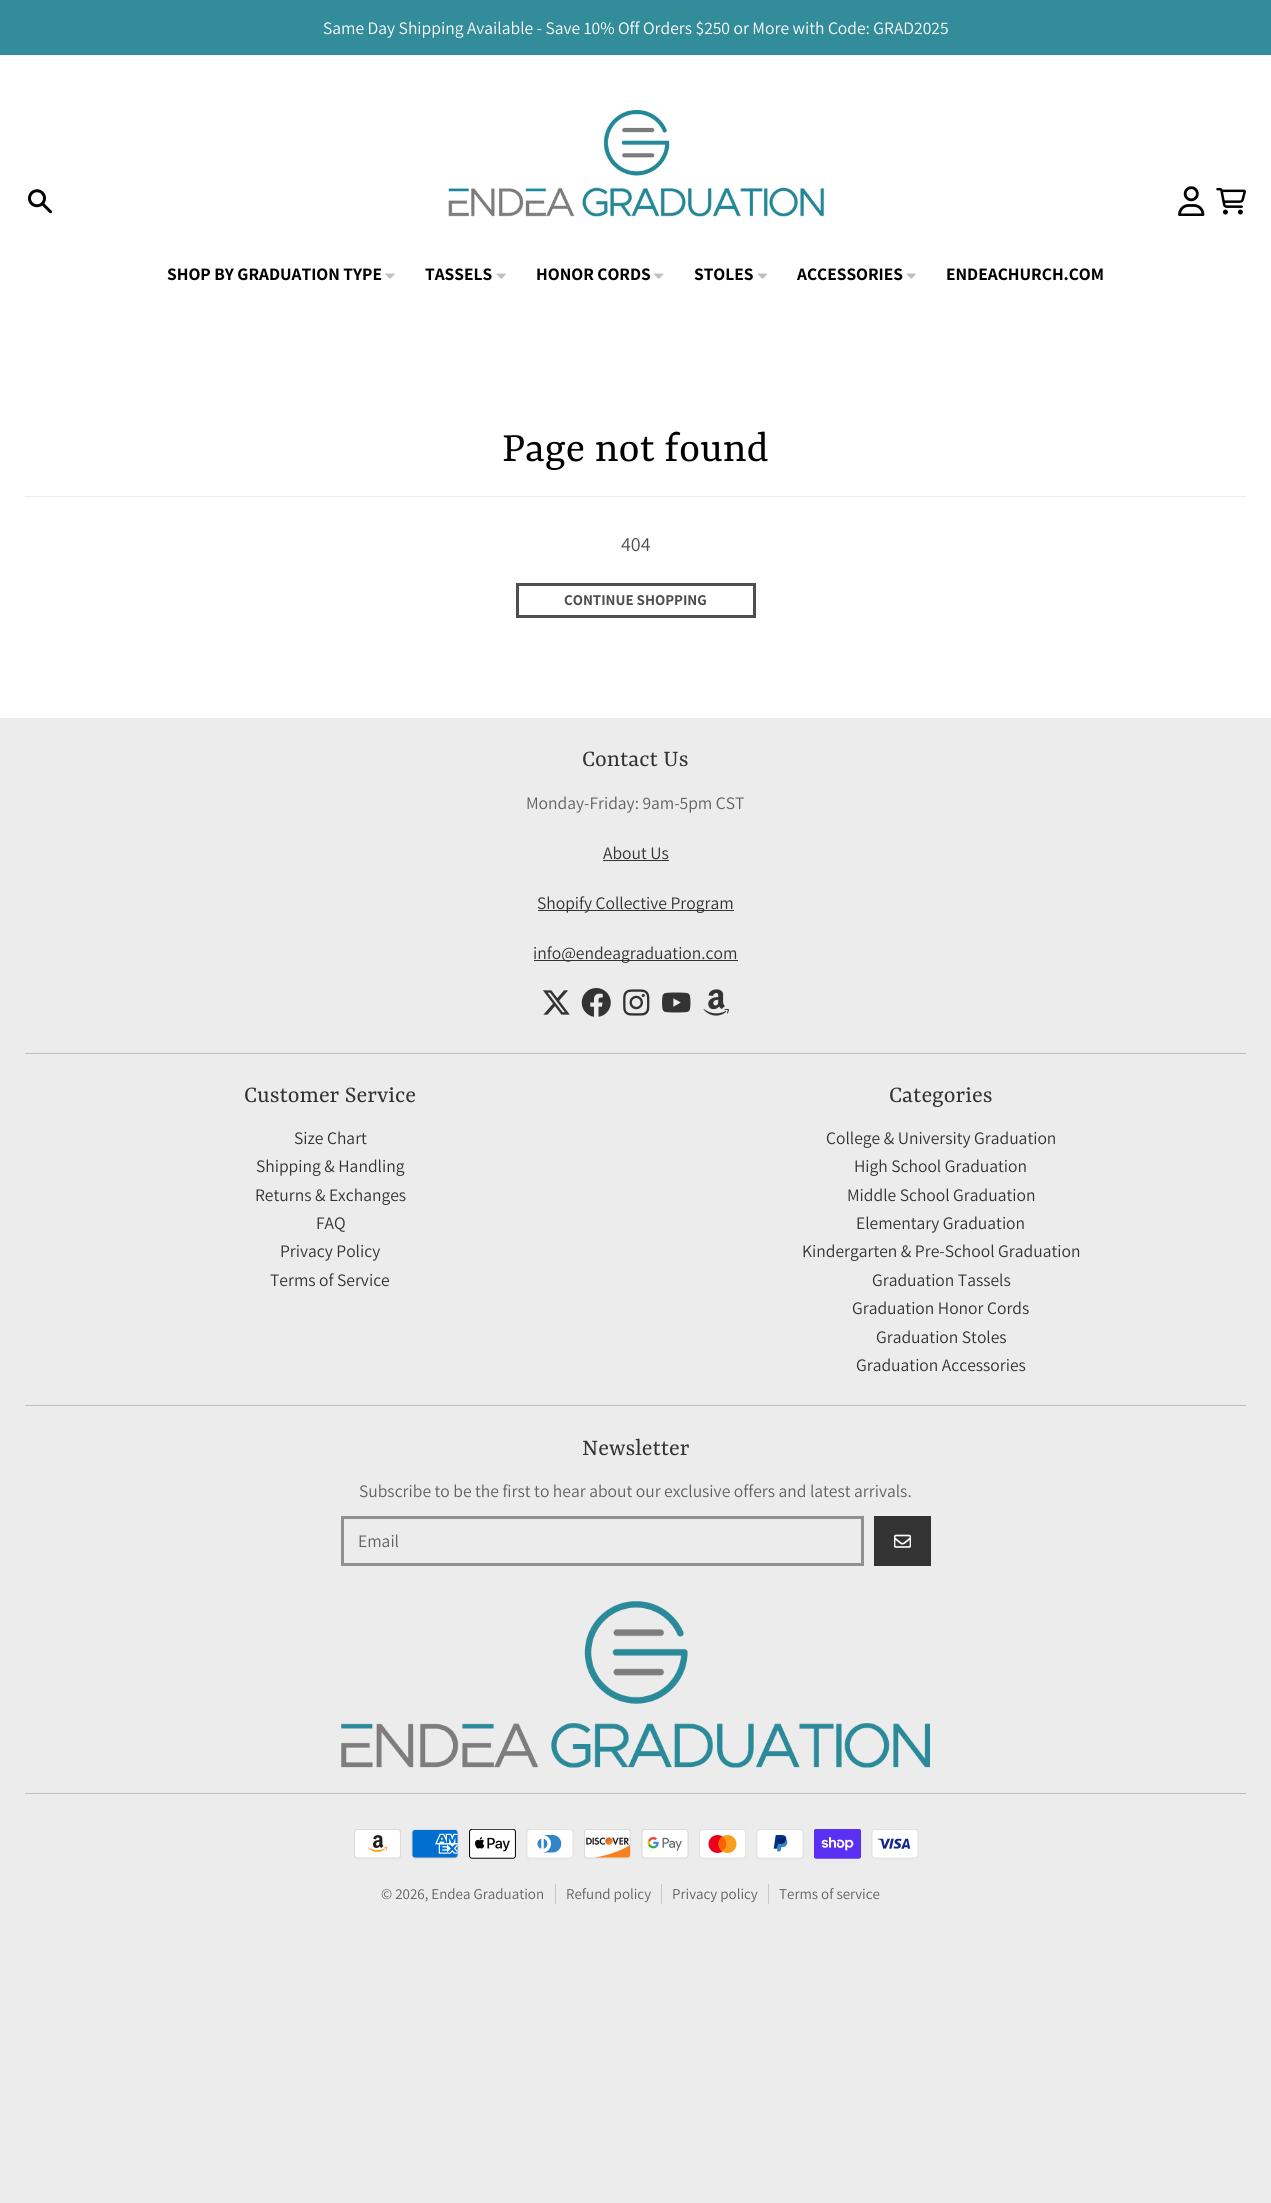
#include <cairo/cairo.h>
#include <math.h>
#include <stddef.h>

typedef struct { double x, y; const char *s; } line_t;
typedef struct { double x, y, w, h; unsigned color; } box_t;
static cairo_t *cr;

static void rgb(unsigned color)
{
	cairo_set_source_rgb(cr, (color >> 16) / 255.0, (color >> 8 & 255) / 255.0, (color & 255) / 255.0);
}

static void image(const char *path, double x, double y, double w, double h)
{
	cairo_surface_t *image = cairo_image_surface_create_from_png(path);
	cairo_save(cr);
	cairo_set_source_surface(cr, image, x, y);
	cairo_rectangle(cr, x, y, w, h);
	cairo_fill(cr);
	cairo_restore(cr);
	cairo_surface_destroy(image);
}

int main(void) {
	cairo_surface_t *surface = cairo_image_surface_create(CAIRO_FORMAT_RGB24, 1271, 2203);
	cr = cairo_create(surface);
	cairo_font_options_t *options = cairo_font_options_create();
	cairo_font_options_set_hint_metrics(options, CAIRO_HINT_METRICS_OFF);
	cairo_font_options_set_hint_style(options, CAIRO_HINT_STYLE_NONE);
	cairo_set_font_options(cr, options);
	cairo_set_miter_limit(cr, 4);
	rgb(0xececec);
	cairo_paint(cr);
	rgb(0x338c9a);
	cairo_rectangle(cr, 0, 0, 1271, 55);
	cairo_fill(cr);
	rgb(0xffffff);
	cairo_rectangle(cr, 0, 55, 1271, 663);
	cairo_fill(cr);
	image("img/1.png", 28, 189, 24, 25);
	image("img/2.png", 1178, 186, 27, 30);
	image("img/3.png", 1216, 187, 30, 28);
	image("img/4.png", 448, 110, 376, 107);
	image("img/5.png", 385, 273, 10, 6);
	image("img/6.png", 496, 273, 10, 6);
	image("img/7.png", 654, 273, 10, 6);
	image("img/8.png", 758, 273, 9, 6);
	image("img/6.png", 906, 273, 10, 6);
	rgb(0xededed);
	cairo_rectangle(cr, 25, 496, 1221, 1);
	cairo_fill(cr);
	cairo_rectangle(cr, 517.5, 584.5, 237, 32);
	rgb(0x4f4f4f);
	cairo_set_line_width(cr, 3);
	cairo_stroke(cr);
	{
		static const box_t items[] = {
			{603, 860, 66, 1, 0x333333},
			{538, 910, 196, 1, 0x333333},
			{534, 960, 204, 1, 0x333333},
		};
		for (size_t i = 0; i < sizeof items / sizeof *items; i++) {
			rgb(items[i].color);
			cairo_rectangle(cr, items[i].x, items[i].y, items[i].w, items[i].h);
			cairo_fill(cr);
		}
	}
	image("img/9.png", 543, 990, 27, 25);
	image("img/10.png", 581, 988, 30, 29);
	image("img/11.png", 623, 989, 27, 27);
	image("img/12.png", 662, 992, 29, 21);
	image("img/13.png", 703, 989, 26, 27);
	rgb(0xbebebe);
	cairo_rectangle(cr, 25, 1053, 1221, 1);
	cairo_fill(cr);
	cairo_rectangle(cr, 25, 1405, 1221, 1);
	cairo_fill(cr);
	cairo_rectangle(cr, 342.5, 1517.5, 520, 47);
	rgb(0x909090);
	cairo_stroke(cr);
	rgb(0x333333);
	cairo_rectangle(cr, 874, 1516, 57, 50);
	cairo_fill(cr);
	image("img/14.png", 894, 1534, 17, 14);
	image("img/15.png", 341, 1601, 589, 167);
	rgb(0xbebebe);
	cairo_rectangle(cr, 25, 1793, 1221, 1);
	cairo_fill(cr);
	image("img/16.png", 354, 1829, 47, 30);
	image("img/17.png", 411, 1829, 48, 30);
	image("img/18.png", 469, 1829, 47, 30);
	image("img/19.png", 526, 1829, 48, 30);
	image("img/20.png", 584, 1829, 47, 30);
	image("img/21.png", 641, 1829, 48, 30);
	image("img/22.png", 699, 1829, 47, 30);
	image("img/23.png", 756, 1829, 48, 30);
	image("img/24.png", 814, 1829, 47, 30);
	image("img/25.png", 871, 1829, 48, 30);
	{
		static const box_t items[] = {
			{555, 1884, 1, 20, 0xc7c7c7},
			{661, 1884, 1, 20, 0xc7c7c7},
			{768, 1884, 1, 20, 0xc7c7c7},
		};
		for (size_t i = 0; i < sizeof items / sizeof *items; i++) {
			rgb(items[i].color);
			cairo_rectangle(cr, items[i].x, items[i].y, items[i].w, items[i].h);
			cairo_fill(cr);
		}
	}
	cairo_select_font_face(cr, "Assistant", CAIRO_FONT_SLANT_NORMAL, CAIRO_FONT_WEIGHT_NORMAL);
	cairo_set_font_size(cr, 17.5);
	rgb(0xffffff);
	cairo_move_to(cr, 323, 34);
	cairo_show_text(cr, "Same Day Shipping Available - Save 10% Off Orders $250 or More with Code: GRAD2025");
	cairo_select_font_face(cr, "Assistant", CAIRO_FONT_SLANT_NORMAL, CAIRO_FONT_WEIGHT_BOLD);
	rgb(0x000000);
	{
		static const line_t items[] = {
			{167, 280, "SHOP BY GRADUATION TYPE"},
			{425, 280, "TASSELS"},
			{536, 280, "HONOR CORDS"},
			{694, 280, "STOLES"},
			{797, 280, "ACCESSORIES"},
			{946, 280, "ENDEACHURCH.COM"},
		};
		for (size_t i = 0; i < sizeof items / sizeof *items; i++) {
			cairo_move_to(cr, items[i].x, items[i].y);
			cairo_show_text(cr, items[i].s);
		}
	}
	cairo_select_font_face(cr, "Rasa", CAIRO_FONT_SLANT_NORMAL, CAIRO_FONT_WEIGHT_NORMAL);
	cairo_set_font_size(cr, 45);
	cairo_move_to(cr, 502, 461);
	cairo_show_text(cr, "Page not found");
	cairo_select_font_face(cr, "Assistant", CAIRO_FONT_SLANT_NORMAL, CAIRO_FONT_WEIGHT_NORMAL);
	cairo_set_font_size(cr, 20);
	rgb(0x4f4f4f);
	cairo_move_to(cr, 621, 551);
	cairo_show_text(cr, "404");
	cairo_select_font_face(cr, "Assistant", CAIRO_FONT_SLANT_NORMAL, CAIRO_FONT_WEIGHT_BOLD);
	cairo_set_font_size(cr, 15);
	cairo_move_to(cr, 564, 605);
	cairo_show_text(cr, "CONTINUE SHOPPING");
	cairo_select_font_face(cr, "Rasa", CAIRO_FONT_SLANT_NORMAL, CAIRO_FONT_WEIGHT_NORMAL);
	cairo_set_font_size(cr, 25);
	rgb(0x333333);
	cairo_move_to(cr, 582, 766);
	cairo_show_text(cr, "Contact Us");
	cairo_select_font_face(cr, "Assistant", CAIRO_FONT_SLANT_NORMAL, CAIRO_FONT_WEIGHT_NORMAL);
	cairo_set_font_size(cr, 17.5);
	rgb(0x616161);
	cairo_move_to(cr, 526, 809);
	cairo_show_text(cr, "Monday-Friday: 9am-5pm CST");
	rgb(0x333333);
	{
		static const line_t items[] = {
			{603, 859, "About Us"},
			{537, 909, "Shopify Collective Program"},
			{533, 959, "info@endeagraduation.com"},
		};
		for (size_t i = 0; i < sizeof items / sizeof *items; i++) {
			cairo_move_to(cr, items[i].x, items[i].y);
			cairo_show_text(cr, items[i].s);
		}
	}
	cairo_select_font_face(cr, "Rasa", CAIRO_FONT_SLANT_NORMAL, CAIRO_FONT_WEIGHT_NORMAL);
	cairo_set_font_size(cr, 25);
	cairo_move_to(cr, 244, 1102);
	cairo_show_text(cr, "Customer Service");
	cairo_select_font_face(cr, "Assistant", CAIRO_FONT_SLANT_NORMAL, CAIRO_FONT_WEIGHT_NORMAL);
	cairo_set_font_size(cr, 17.5);
	{
		static const line_t items[] = {
			{294, 1144, "Size Chart"},
			{256, 1172, "Shipping & Handling"},
			{255, 1201, "Returns & Exchanges"},
			{316, 1229, "FAQ"},
			{280, 1257, "Privacy Policy"},
			{270, 1286, "Terms of Service"},
		};
		for (size_t i = 0; i < sizeof items / sizeof *items; i++) {
			cairo_move_to(cr, items[i].x, items[i].y);
			cairo_show_text(cr, items[i].s);
		}
	}
	cairo_select_font_face(cr, "Rasa", CAIRO_FONT_SLANT_NORMAL, CAIRO_FONT_WEIGHT_NORMAL);
	cairo_set_font_size(cr, 25);
	cairo_move_to(cr, 889, 1102);
	cairo_show_text(cr, "Categories");
	cairo_select_font_face(cr, "Assistant", CAIRO_FONT_SLANT_NORMAL, CAIRO_FONT_WEIGHT_NORMAL);
	cairo_set_font_size(cr, 17.5);
	{
		static const line_t items[] = {
			{826, 1144, "College & University Graduation"},
			{854, 1172, "High School Graduation"},
			{847, 1201, "Middle School Graduation"},
			{856, 1229, "Elementary Graduation"},
			{802, 1257, "Kindergarten & Pre-School Graduation"},
			{872, 1286, "Graduation Tassels"},
			{852, 1314, "Graduation Honor Cords"},
			{876, 1343, "Graduation Stoles"},
			{856, 1371, "Graduation Accessories"},
		};
		for (size_t i = 0; i < sizeof items / sizeof *items; i++) {
			cairo_move_to(cr, items[i].x, items[i].y);
			cairo_show_text(cr, items[i].s);
		}
	}
	cairo_select_font_face(cr, "Rasa", CAIRO_FONT_SLANT_NORMAL, CAIRO_FONT_WEIGHT_NORMAL);
	cairo_set_font_size(cr, 25);
	cairo_move_to(cr, 582, 1455);
	cairo_show_text(cr, "Newsletter");
	cairo_select_font_face(cr, "Assistant", CAIRO_FONT_SLANT_NORMAL, CAIRO_FONT_WEIGHT_NORMAL);
	cairo_set_font_size(cr, 17.5);
	rgb(0x616161);
	cairo_move_to(cr, 359, 1497);
	cairo_show_text(cr, "Subscribe to be the first to hear about our exclusive offers and latest arrivals.");
	cairo_move_to(cr, 358, 1547);
	cairo_show_text(cr, "Email");
	cairo_set_font_size(cr, 15);
	{
		static const line_t items[] = {
			{381, 1899, "© 2026, Endea Graduation"},
			{566, 1899, "Refund policy"},
			{672, 1899, "Privacy policy"},
			{779, 1899, "Terms of service"},
		};
		for (size_t i = 0; i < sizeof items / sizeof *items; i++) {
			cairo_move_to(cr, items[i].x, items[i].y);
			cairo_show_text(cr, items[i].s);
		}
	}
	cairo_surface_write_to_png(surface, "page.png");
	cairo_font_options_destroy(options);
	cairo_destroy(cr);
	cairo_surface_destroy(surface);
	return 0;
}
